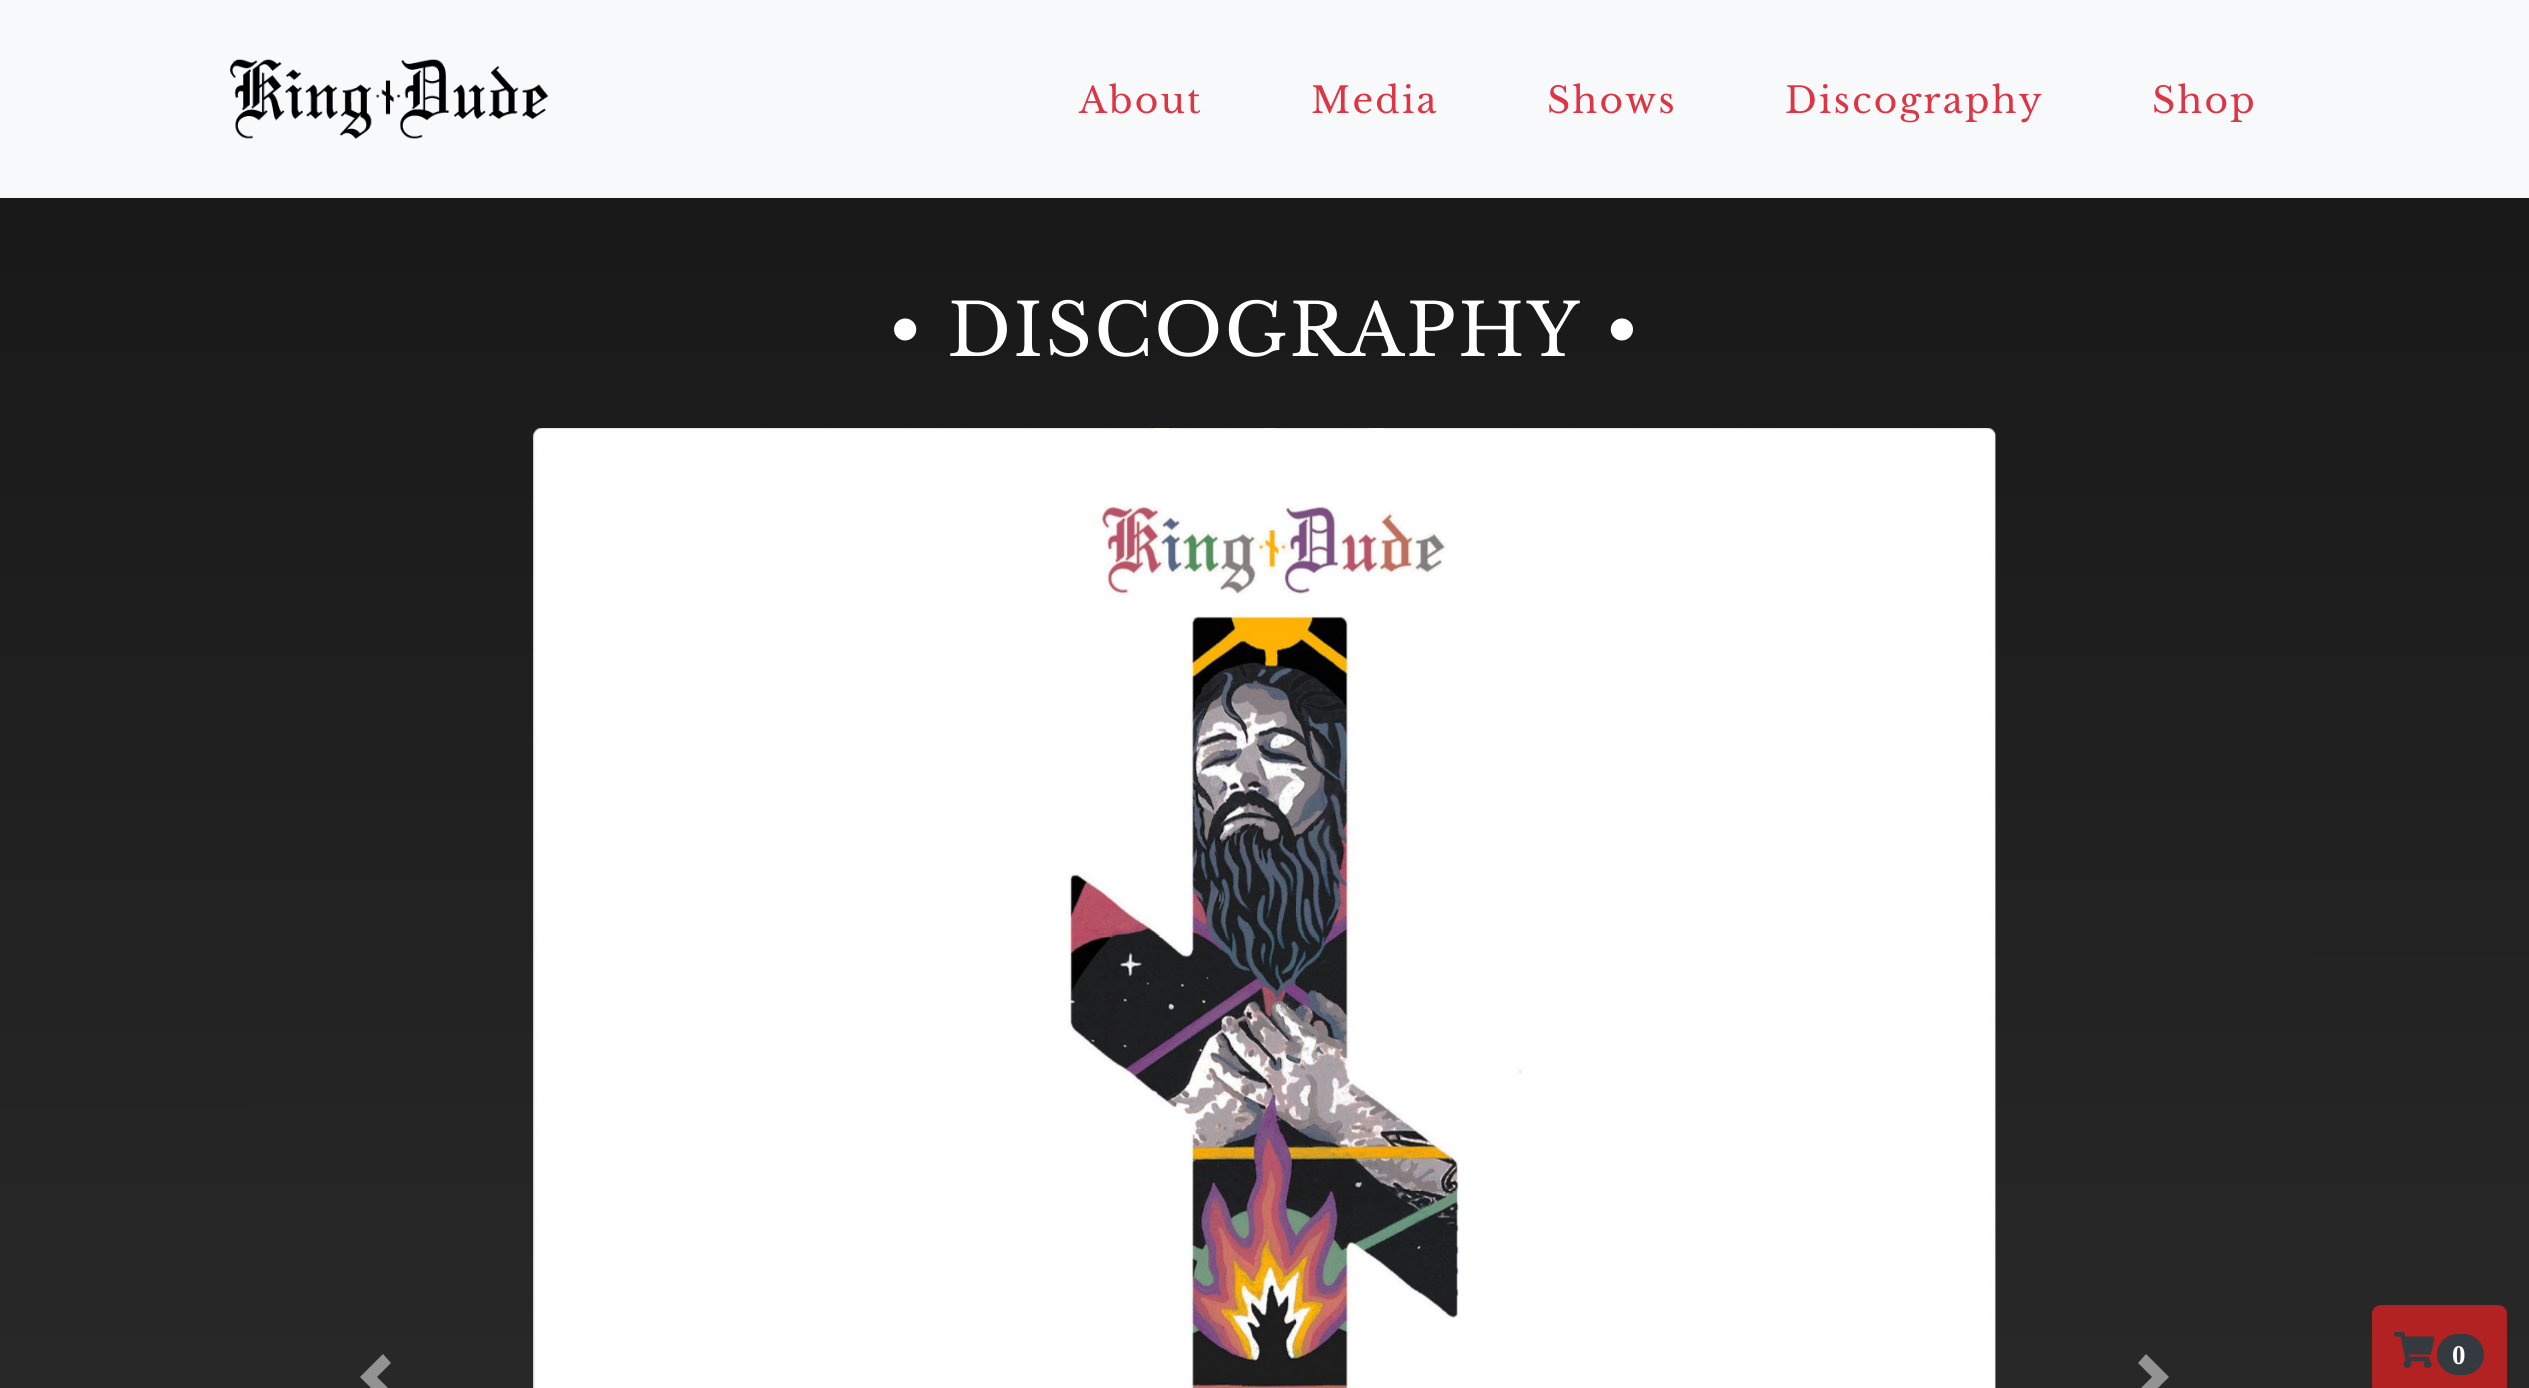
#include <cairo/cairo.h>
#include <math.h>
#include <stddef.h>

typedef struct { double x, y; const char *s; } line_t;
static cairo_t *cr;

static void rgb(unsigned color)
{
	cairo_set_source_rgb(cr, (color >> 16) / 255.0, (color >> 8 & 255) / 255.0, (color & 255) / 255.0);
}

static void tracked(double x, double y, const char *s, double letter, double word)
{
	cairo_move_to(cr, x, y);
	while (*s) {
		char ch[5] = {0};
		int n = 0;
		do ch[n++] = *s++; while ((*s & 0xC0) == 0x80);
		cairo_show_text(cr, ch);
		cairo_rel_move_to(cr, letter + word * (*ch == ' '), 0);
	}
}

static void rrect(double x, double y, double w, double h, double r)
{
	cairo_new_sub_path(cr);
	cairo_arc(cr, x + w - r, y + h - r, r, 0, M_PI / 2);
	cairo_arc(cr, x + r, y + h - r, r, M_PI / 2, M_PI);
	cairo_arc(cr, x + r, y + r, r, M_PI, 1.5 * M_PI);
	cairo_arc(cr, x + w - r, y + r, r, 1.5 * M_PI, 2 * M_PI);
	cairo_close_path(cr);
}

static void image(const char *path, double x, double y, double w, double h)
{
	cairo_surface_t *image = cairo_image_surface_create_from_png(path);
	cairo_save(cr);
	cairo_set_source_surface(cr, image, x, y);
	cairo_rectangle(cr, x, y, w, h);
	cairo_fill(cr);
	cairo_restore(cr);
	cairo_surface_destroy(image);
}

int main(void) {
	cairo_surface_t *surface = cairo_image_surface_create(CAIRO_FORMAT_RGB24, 2529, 1388);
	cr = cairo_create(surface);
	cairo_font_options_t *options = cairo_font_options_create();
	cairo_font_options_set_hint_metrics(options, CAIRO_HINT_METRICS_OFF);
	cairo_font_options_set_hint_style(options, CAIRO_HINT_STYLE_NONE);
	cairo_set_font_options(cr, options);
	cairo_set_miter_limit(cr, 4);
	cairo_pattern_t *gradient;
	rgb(0xffffff);
	cairo_paint(cr);
	rgb(0xf8f9fa);
	cairo_rectangle(cr, 0, 0, 2529, 198);
	cairo_fill(cr);
	image("img/1.png", 230, 59, 319, 80);
	gradient = cairo_pattern_create_linear(1264, 0, 1265, 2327);
	cairo_pattern_add_color_stop_rgba(gradient, 0, 0.086, 0.086, 0.086, 1);
	cairo_pattern_add_color_stop_rgba(gradient, 0.75, 0.176, 0.176, 0.176, 1);
	cairo_pattern_add_color_stop_rgba(gradient, 1, 0.271, 0.271, 0.271, 1);
	cairo_set_source(cr, gradient);
	cairo_pattern_destroy(gradient);
	cairo_rectangle(cr, 0, 198, 2529, 1190);
	cairo_fill(cr);
	rgb(0x939393);
	cairo_new_path(cr);
	cairo_move_to(cr, 383, 1354);
	cairo_line_to(cr, 360, 1377);
	cairo_line_to(cr, 383, 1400);
	cairo_line_to(cr, 391, 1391);
	cairo_line_to(cr, 377, 1377);
	cairo_line_to(cr, 391, 1363);
	cairo_close_path(cr);
	cairo_fill(cr);
	image("img/2.png", 533, 428, 1463, 960);
	cairo_new_path(cr);
	cairo_move_to(cr, 2146, 1354);
	cairo_line_to(cr, 2138, 1363);
	cairo_line_to(cr, 2152, 1377);
	cairo_line_to(cr, 2138, 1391);
	cairo_line_to(cr, 2146, 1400);
	cairo_line_to(cr, 2169, 1377);
	cairo_close_path(cr);
	cairo_fill(cr);
	rgb(0xb22222);
	rrect(2372, 1305, 135, 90, 9);
	cairo_fill(cr);
	image("img/3.png", 2394, 1332, 41, 36);
	rgb(0x343a40);
	rrect(2437, 1334, 47, 41, 20.5);
	cairo_fill(cr);
	cairo_select_font_face(cr, "Libre Baskerville", CAIRO_FONT_SLANT_NORMAL, CAIRO_FONT_WEIGHT_NORMAL);
	cairo_set_font_size(cr, 36);
	rgb(0xdc3545);
	{
		static const line_t items[] = {
			{1079, 113, "About"},
			{1311, 113, "Media"},
			{1547, 113, "Shows"},
			{1785, 113, "Discography"},
			{2152, 113, "Shop"},
		};
		for (size_t i = 0; i < sizeof items / sizeof *items; i++) {
			tracked(items[i].x, items[i].y, items[i].s, 2.25, 0);
		}
	}
	cairo_set_font_size(cr, 72);
	rgb(0xffffff);
	tracked(888, 356, "• DISCOGRAPHY •", 2.25, 0);
	cairo_select_font_face(cr, "Liberation Serif", CAIRO_FONT_SLANT_NORMAL, CAIRO_FONT_WEIGHT_BOLD);
	cairo_set_font_size(cr, 27);
	tracked(2452, 1364, "0", 2.25, 0);
	cairo_surface_write_to_png(surface, "page.png");
	cairo_font_options_destroy(options);
	cairo_destroy(cr);
	cairo_surface_destroy(surface);
	return 0;
}
